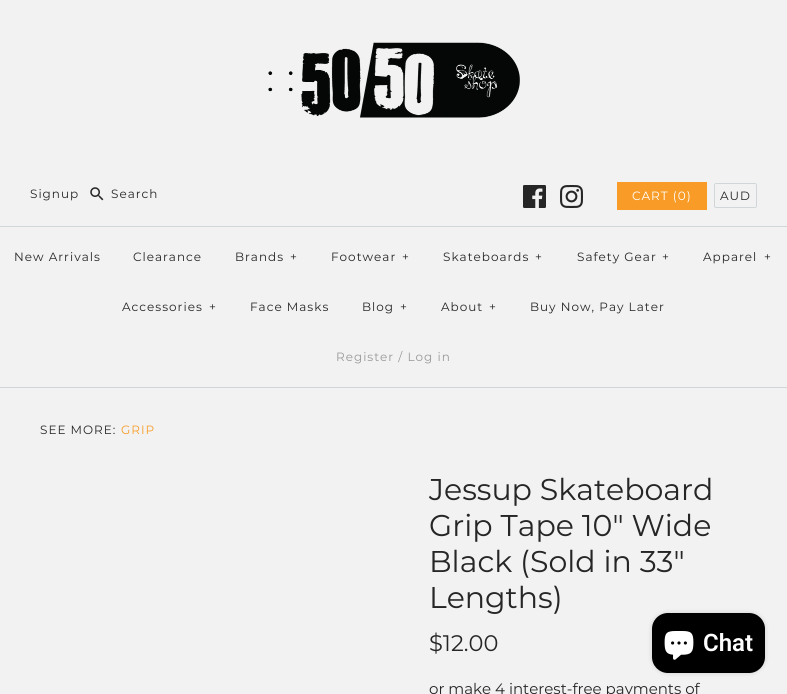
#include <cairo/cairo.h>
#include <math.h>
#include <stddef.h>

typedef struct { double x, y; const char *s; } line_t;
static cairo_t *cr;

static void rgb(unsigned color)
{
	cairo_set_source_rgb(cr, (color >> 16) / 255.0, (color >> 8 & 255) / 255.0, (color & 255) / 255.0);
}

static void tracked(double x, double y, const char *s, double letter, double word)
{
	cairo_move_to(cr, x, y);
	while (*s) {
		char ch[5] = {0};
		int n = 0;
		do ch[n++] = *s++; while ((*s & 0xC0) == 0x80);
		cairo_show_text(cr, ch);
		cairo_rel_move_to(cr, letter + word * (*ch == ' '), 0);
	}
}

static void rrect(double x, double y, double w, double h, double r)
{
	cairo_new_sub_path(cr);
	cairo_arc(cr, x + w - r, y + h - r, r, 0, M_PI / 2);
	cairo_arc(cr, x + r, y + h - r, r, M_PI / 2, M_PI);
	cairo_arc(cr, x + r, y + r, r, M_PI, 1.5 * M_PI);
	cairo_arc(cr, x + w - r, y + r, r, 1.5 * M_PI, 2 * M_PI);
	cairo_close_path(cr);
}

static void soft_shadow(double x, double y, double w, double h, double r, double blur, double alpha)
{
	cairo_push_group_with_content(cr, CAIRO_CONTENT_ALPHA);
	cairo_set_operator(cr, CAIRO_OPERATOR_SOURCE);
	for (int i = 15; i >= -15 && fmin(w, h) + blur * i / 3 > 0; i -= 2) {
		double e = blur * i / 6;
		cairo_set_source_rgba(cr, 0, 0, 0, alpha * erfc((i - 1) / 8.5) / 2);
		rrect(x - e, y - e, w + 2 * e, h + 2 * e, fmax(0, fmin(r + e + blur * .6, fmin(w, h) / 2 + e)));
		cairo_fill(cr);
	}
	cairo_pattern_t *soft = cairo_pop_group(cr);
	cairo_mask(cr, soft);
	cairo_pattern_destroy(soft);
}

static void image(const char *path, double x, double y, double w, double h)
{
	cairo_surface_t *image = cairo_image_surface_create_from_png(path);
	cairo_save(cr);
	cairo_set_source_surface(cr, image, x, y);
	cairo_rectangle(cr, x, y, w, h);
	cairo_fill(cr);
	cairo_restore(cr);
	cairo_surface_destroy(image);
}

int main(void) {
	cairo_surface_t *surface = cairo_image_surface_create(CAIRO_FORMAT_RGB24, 787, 694);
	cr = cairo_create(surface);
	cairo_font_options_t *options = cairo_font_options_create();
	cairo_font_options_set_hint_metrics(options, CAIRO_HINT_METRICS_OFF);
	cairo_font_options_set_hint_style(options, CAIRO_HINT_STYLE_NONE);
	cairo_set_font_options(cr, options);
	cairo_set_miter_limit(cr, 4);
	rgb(0xf2f2f2);
	cairo_paint(cr);
	image("img/1.png", 268, 42, 252, 76);
	image("img/2.png", 90, 187, 14, 14);
	image("img/3.png", 523, 185, 23, 23);
	image("img/4.png", 560, 185, 23, 23);
	rgb(0xf89c27);
	cairo_rectangle(cr, 617, 182, 90, 28);
	cairo_fill(cr);
	rrect(714.5, 183.5, 42, 24, 1.5);
	rgb(0xd1d6d9);
	cairo_set_line_width(cr, 1);
	cairo_stroke(cr);
	cairo_rectangle(cr, 0, 387, 787, 1);
	cairo_fill(cr);
	cairo_rectangle(cr, 0, 226, 787, 1);
	cairo_fill(cr);
	rgb(0x000000);
	soft_shadow(652, 613, 113, 60, 16, 2.5, 0.15);
	rgb(0x000000);
	rrect(652, 613, 113, 60, 16);
	cairo_fill(cr);
	image("img/5.png", 664, 631, 30, 29);
	cairo_select_font_face(cr, "Montserrat Thin", CAIRO_FONT_SLANT_NORMAL, CAIRO_FONT_WEIGHT_NORMAL);
	cairo_set_font_size(cr, 12);
	rgb(0x262626);
	tracked(30, 198, "Signup", 1, 0);
	tracked(111, 198, "Search", 1, 0);
	rgb(0xffffff);
	tracked(632, 200, "CART (0)", 1, 0);
	rgb(0x262626);
	{
		static const line_t items[] = {
			{720, 200, "AUD"},
			{14, 261, "New Arrivals"},
			{133, 261, "Clearance"},
			{235, 261, "Brands"},
			{290, 261, "+"},
			{331, 261, "Footwear"},
			{402, 261, "+"},
			{443, 261, "Skateboards"},
			{535, 261, "+"},
			{577, 261, "Safety Gear"},
			{662, 261, "+"},
			{703, 261, "Apparel"},
			{764, 261, "+"},
			{122, 311, "Accessories"},
			{209, 311, "+"},
			{250, 311, "Face Masks"},
			{362, 311, "Blog"},
			{400, 311, "+"},
			{441, 311, "About"},
			{489, 311, "+"},
			{530, 311, "Buy Now, Pay Later"},
		};
		for (size_t i = 0; i < sizeof items / sizeof *items; i++) {
			tracked(items[i].x, items[i].y, items[i].s, 1, 0);
		}
	}
	rgb(0x999999);
	tracked(336, 361, "Register / Log in", 1, 0);
	rgb(0x262626);
	tracked(40, 434, "SEE MORE:", 1, 0);
	rgb(0xf89c27);
	tracked(121, 434, "GRIP", 1, 0);
	cairo_set_font_size(cr, 30);
	rgb(0x262626);
	{
		static const line_t items[] = {
			{429, 500, "Jessup Skateboard"},
			{429, 536, "Grip Tape 10\" Wide"},
			{429, 572, "Black (Sold in 33\""},
			{429, 608, "Lengths)"},
		};
		for (size_t i = 0; i < sizeof items / sizeof *items; i++) {
			cairo_move_to(cr, items[i].x, items[i].y);
			cairo_show_text(cr, items[i].s);
		}
	}
	cairo_set_font_size(cr, 22.5);
	cairo_move_to(cr, 429, 651);
	cairo_show_text(cr, "$12.00");
	cairo_set_font_size(cr, 15);
	cairo_move_to(cr, 429, 694);
	cairo_show_text(cr, "or make 4 interest-free payments of");
	cairo_select_font_face(cr, "Roboto SemiBold", CAIRO_FONT_SLANT_NORMAL, CAIRO_FONT_WEIGHT_NORMAL);
	cairo_set_font_size(cr, 24);
	rgb(0xffffff);
	cairo_move_to(cr, 703, 651);
	cairo_show_text(cr, "Chat");
	cairo_surface_write_to_png(surface, "page.png");
	cairo_font_options_destroy(options);
	cairo_destroy(cr);
	cairo_surface_destroy(surface);
	return 0;
}
